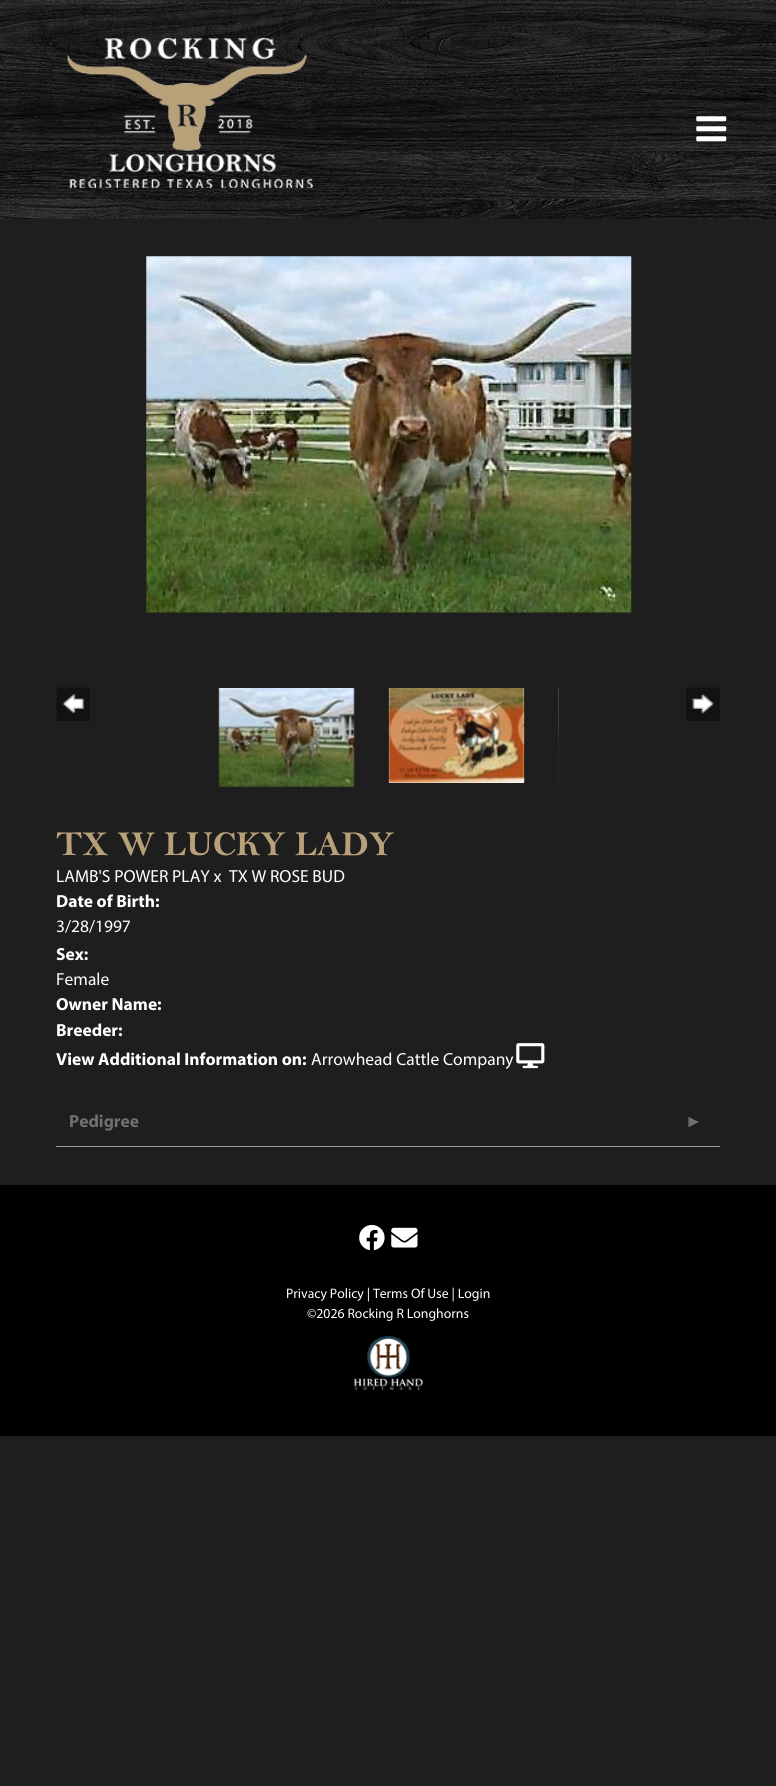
#include <cairo/cairo.h>
#include <math.h>
#include <stddef.h>

typedef struct { double x, y; const char *s; } line_t;
static cairo_t *cr;

static void rgb(unsigned color)
{
	cairo_set_source_rgb(cr, (color >> 16) / 255.0, (color >> 8 & 255) / 255.0, (color & 255) / 255.0);
}

static void image(const char *path, double x, double y, double w, double h)
{
	cairo_surface_t *image = cairo_image_surface_create_from_png(path);
	cairo_save(cr);
	cairo_set_source_surface(cr, image, x, y);
	cairo_rectangle(cr, x, y, w, h);
	cairo_fill(cr);
	cairo_restore(cr);
	cairo_surface_destroy(image);
}

int main(void) {
	cairo_surface_t *surface = cairo_image_surface_create(CAIRO_FORMAT_RGB24, 776, 1786);
	cr = cairo_create(surface);
	cairo_font_options_t *options = cairo_font_options_create();
	cairo_font_options_set_hint_metrics(options, CAIRO_HINT_METRICS_OFF);
	cairo_font_options_set_hint_style(options, CAIRO_HINT_STYLE_NONE);
	cairo_set_font_options(cr, options);
	cairo_set_miter_limit(cr, 4);
	rgb(0x1e1e1e);
	cairo_paint(cr);
	image("img/1.png", 0, 0, 776, 219);
	image("img/2.png", 67, 38, 246, 150);
	image("img/3.png", 696, 116, 31, 26);
	image("img/4.png", 146, 256, 486, 357);
	image("img/5.png", 56, 687, 34, 34);
	image("img/6.png", 218, 688, 137, 99);
	rgb(0xffffff);
	cairo_rectangle(cr, 389, 688, 135, 95);
	cairo_fill(cr);
	image("img/7.png", 388, 688, 137, 95);
	image("img/8.png", 558, 688, 1, 99);
	image("img/9.png", 686, 687, 34, 34);
	image("img/10.png", 516, 1043, 29, 26);
	rgb(0x9b9999);
	cairo_rectangle(cr, 56, 1146, 664, 1);
	cairo_fill(cr);
	rgb(0x000000);
	cairo_rectangle(cr, 0, 1185, 776, 251);
	cairo_fill(cr);
	image("img/11.png", 359, 1224, 26, 27);
	image("img/12.png", 391, 1227, 27, 21);
	image("img/13.png", 353, 1336, 70, 54);
	cairo_select_font_face(cr, "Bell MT", CAIRO_FONT_SLANT_NORMAL, CAIRO_FONT_WEIGHT_BOLD);
	cairo_set_font_size(cr, 35);
	rgb(0xb8a179);
	cairo_move_to(cr, 56, 855);
	cairo_show_text(cr, "TX W LUCKY LADY");
	cairo_select_font_face(cr, "Myriad", CAIRO_FONT_SLANT_NORMAL, CAIRO_FONT_WEIGHT_NORMAL);
	cairo_set_font_size(cr, 17.5);
	rgb(0xffffff);
	cairo_move_to(cr, 56, 882);
	cairo_show_text(cr, "LAMB'S POWER PLAY x");
	cairo_move_to(cr, 229, 882);
	cairo_show_text(cr, "TX W ROSE BUD");
	cairo_select_font_face(cr, "Myriad", CAIRO_FONT_SLANT_NORMAL, CAIRO_FONT_WEIGHT_BOLD);
	cairo_move_to(cr, 56, 907);
	cairo_show_text(cr, "Date of Birth:");
	cairo_select_font_face(cr, "Myriad", CAIRO_FONT_SLANT_NORMAL, CAIRO_FONT_WEIGHT_NORMAL);
	cairo_move_to(cr, 56, 932);
	cairo_show_text(cr, "3/28/1997");
	cairo_select_font_face(cr, "Myriad", CAIRO_FONT_SLANT_NORMAL, CAIRO_FONT_WEIGHT_BOLD);
	cairo_move_to(cr, 56, 960);
	cairo_show_text(cr, "Sex:");
	cairo_select_font_face(cr, "Myriad", CAIRO_FONT_SLANT_NORMAL, CAIRO_FONT_WEIGHT_NORMAL);
	cairo_move_to(cr, 56, 985);
	cairo_show_text(cr, "Female");
	cairo_select_font_face(cr, "Myriad", CAIRO_FONT_SLANT_NORMAL, CAIRO_FONT_WEIGHT_BOLD);
	{
		static const line_t items[] = {
			{56, 1010, "Owner Name:"},
			{56, 1036, "Breeder:"},
			{56, 1065, "View Additional Information on:"},
		};
		for (size_t i = 0; i < sizeof items / sizeof *items; i++) {
			cairo_move_to(cr, items[i].x, items[i].y);
			cairo_show_text(cr, items[i].s);
		}
	}
	cairo_select_font_face(cr, "Myriad", CAIRO_FONT_SLANT_NORMAL, CAIRO_FONT_WEIGHT_NORMAL);
	cairo_move_to(cr, 311, 1065);
	cairo_show_text(cr, "Arrowhead Cattle Company");
	cairo_select_font_face(cr, "Myriad", CAIRO_FONT_SLANT_NORMAL, CAIRO_FONT_WEIGHT_BOLD);
	rgb(0x726f6f);
	cairo_move_to(cr, 69, 1127);
	cairo_show_text(cr, "Pedigree");
	cairo_select_font_face(cr, "Liberation Sans", CAIRO_FONT_SLANT_NORMAL, CAIRO_FONT_WEIGHT_BOLD);
	cairo_move_to(cr, 685, 1127);
	cairo_show_text(cr, "►");
	cairo_select_font_face(cr, "Myriad", CAIRO_FONT_SLANT_NORMAL, CAIRO_FONT_WEIGHT_NORMAL);
	cairo_set_font_size(cr, 13.75);
	rgb(0xffffff);
	cairo_move_to(cr, 286, 1298);
	cairo_show_text(cr, "Privacy Policy | Terms Of Use | Login");
	cairo_move_to(cr, 307, 1318);
	cairo_show_text(cr, "©2026 Rocking R Longhorns");
	cairo_surface_write_to_png(surface, "page.png");
	cairo_font_options_destroy(options);
	cairo_destroy(cr);
	cairo_surface_destroy(surface);
	return 0;
}
